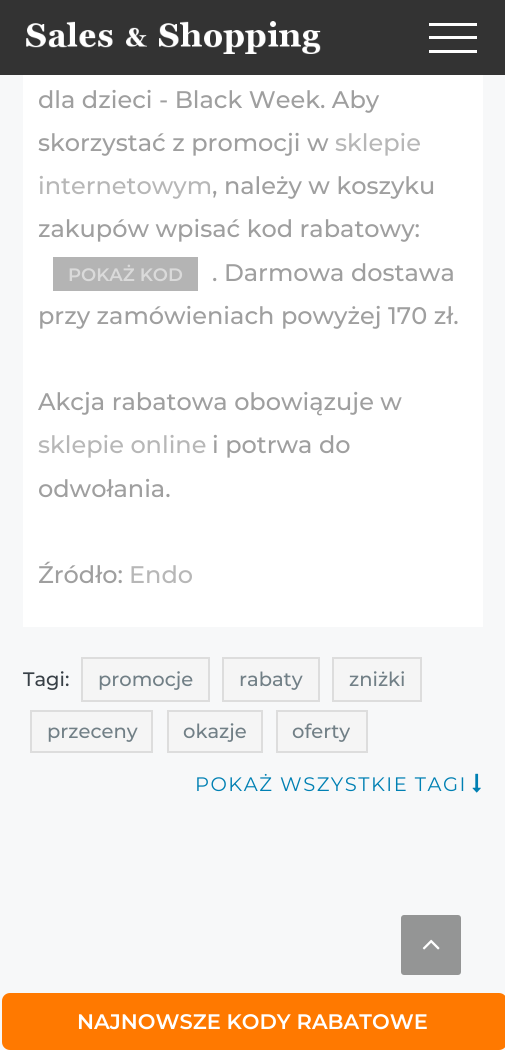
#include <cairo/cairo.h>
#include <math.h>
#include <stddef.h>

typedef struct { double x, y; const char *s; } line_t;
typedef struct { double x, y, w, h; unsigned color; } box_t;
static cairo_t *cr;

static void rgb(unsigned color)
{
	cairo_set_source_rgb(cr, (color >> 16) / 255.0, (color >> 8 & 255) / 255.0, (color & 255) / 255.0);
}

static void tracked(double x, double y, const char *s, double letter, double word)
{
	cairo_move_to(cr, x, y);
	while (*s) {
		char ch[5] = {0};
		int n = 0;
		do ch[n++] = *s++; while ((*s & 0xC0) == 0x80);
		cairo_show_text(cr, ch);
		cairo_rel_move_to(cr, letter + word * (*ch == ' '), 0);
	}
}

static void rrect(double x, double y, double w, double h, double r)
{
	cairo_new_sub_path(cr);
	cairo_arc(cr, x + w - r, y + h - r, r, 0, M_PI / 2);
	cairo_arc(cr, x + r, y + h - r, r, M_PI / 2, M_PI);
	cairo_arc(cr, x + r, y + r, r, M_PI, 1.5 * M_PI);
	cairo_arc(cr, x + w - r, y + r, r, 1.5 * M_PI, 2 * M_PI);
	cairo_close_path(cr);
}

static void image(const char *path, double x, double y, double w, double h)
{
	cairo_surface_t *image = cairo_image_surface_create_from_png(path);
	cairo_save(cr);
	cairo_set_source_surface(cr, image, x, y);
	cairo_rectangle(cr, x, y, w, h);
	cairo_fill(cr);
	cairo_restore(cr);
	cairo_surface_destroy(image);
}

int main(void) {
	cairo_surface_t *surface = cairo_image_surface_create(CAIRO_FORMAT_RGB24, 505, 1050);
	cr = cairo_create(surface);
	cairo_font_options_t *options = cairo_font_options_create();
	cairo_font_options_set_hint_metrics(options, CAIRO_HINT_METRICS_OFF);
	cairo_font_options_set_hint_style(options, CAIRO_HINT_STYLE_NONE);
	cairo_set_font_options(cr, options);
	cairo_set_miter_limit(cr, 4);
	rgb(0xf7f8f9);
	cairo_paint(cr);
	rgb(0x333333);
	cairo_rectangle(cr, 0, 0, 505, 75);
	cairo_fill(cr);
	image("img/1.png", 26, 21, 295, 33);
	{
		static const box_t items[] = {
			{429, 23, 48, 3, 0xffffff},
			{429, 36, 48, 3, 0xffffff},
			{429, 50, 48, 3, 0xffffff},
			{23, 75, 460, 552, 0xffffff},
			{53, 257, 145, 34, 0xb4b4b4},
		};
		for (size_t i = 0; i < sizeof items / sizeof *items; i++) {
			rgb(items[i].color);
			cairo_rectangle(cr, items[i].x, items[i].y, items[i].w, items[i].h);
			cairo_fill(cr);
		}
	}
	rgb(0xf5f5f5);
	cairo_rectangle(cr, 82, 658, 127, 43);
	cairo_fill_preserve(cr);
	rgb(0xdddddd);
	cairo_stroke(cr);
	rgb(0xf5f5f5);
	cairo_rectangle(cr, 223, 658, 96, 43);
	cairo_fill_preserve(cr);
	rgb(0xdddddd);
	cairo_stroke(cr);
	rgb(0xf5f5f5);
	cairo_rectangle(cr, 333, 658, 88, 43);
	cairo_fill_preserve(cr);
	rgb(0xdddddd);
	cairo_stroke(cr);
	rgb(0xf5f5f5);
	cairo_rectangle(cr, 31, 711, 121, 41);
	cairo_fill_preserve(cr);
	rgb(0xdddddd);
	cairo_stroke(cr);
	rgb(0xf5f5f5);
	cairo_rectangle(cr, 168, 711, 94, 41);
	cairo_fill_preserve(cr);
	rgb(0xdddddd);
	cairo_stroke(cr);
	rgb(0xf5f5f5);
	cairo_rectangle(cr, 277, 711, 90, 41);
	cairo_fill_preserve(cr);
	rgb(0xdddddd);
	cairo_stroke(cr);
	image("img/2.png", 472, 773, 9, 20);
	rgb(0xff7900);
	rrect(2, 993, 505, 57, 8);
	cairo_fill(cr);
	rgb(0x949595);
	rrect(401, 915, 60, 60, 3);
	cairo_fill(cr);
	image("img/3.png", 422, 939, 18, 11);
	cairo_select_font_face(cr, "Montserrat Medium", CAIRO_FONT_SLANT_NORMAL, CAIRO_FONT_WEIGHT_NORMAL);
	cairo_set_font_size(cr, 24);
	rgb(0x9f9f9f);
	cairo_move_to(cr, 38, 108);
	cairo_show_text(cr, "dla dzieci - Black Week. Aby");
	cairo_move_to(cr, 38, 151);
	cairo_show_text(cr, "skorzystać z promocji w");
	rgb(0xb7b7b7);
	cairo_move_to(cr, 335, 151);
	cairo_show_text(cr, "sklepie");
	cairo_move_to(cr, 38, 194);
	cairo_show_text(cr, "internetowym");
	rgb(0x9f9f9f);
	cairo_move_to(cr, 212, 194);
	cairo_show_text(cr, ", należy w koszyku");
	cairo_move_to(cr, 38, 237);
	cairo_show_text(cr, "zakupów wpisać kod rabatowy:");
	cairo_select_font_face(cr, "Montserrat SemiBold", CAIRO_FONT_SLANT_NORMAL, CAIRO_FONT_WEIGHT_NORMAL);
	cairo_set_font_size(cr, 18);
	rgb(0xdadada);
	cairo_move_to(cr, 68, 281);
	cairo_show_text(cr, "POKAŻ KOD");
	cairo_select_font_face(cr, "Montserrat Medium", CAIRO_FONT_SLANT_NORMAL, CAIRO_FONT_WEIGHT_NORMAL);
	cairo_set_font_size(cr, 24);
	rgb(0x9f9f9f);
	{
		static const line_t items[] = {
			{212, 281, ". Darmowa dostawa"},
			{38, 324, "przy zamówieniach powyżej 170 zł."},
			{38, 410, "Akcja rabatowa obowiązuje w"},
		};
		for (size_t i = 0; i < sizeof items / sizeof *items; i++) {
			cairo_move_to(cr, items[i].x, items[i].y);
			cairo_show_text(cr, items[i].s);
		}
	}
	rgb(0xb7b7b7);
	cairo_move_to(cr, 38, 453);
	cairo_show_text(cr, "sklepie online");
	rgb(0x9f9f9f);
	{
		static const line_t items[] = {
			{212, 453, "i potrwa do"},
			{38, 497, "odwołania."},
			{38, 583, "Źródło:"},
		};
		for (size_t i = 0; i < sizeof items / sizeof *items; i++) {
			cairo_move_to(cr, items[i].x, items[i].y);
			cairo_show_text(cr, items[i].s);
		}
	}
	rgb(0xb7b7b7);
	cairo_move_to(cr, 129, 583);
	cairo_show_text(cr, "Endo");
	cairo_set_font_size(cr, 19.5);
	rgb(0x384047);
	cairo_move_to(cr, 23, 686);
	cairo_show_text(cr, "Tagi:");
	rgb(0x717f86);
	{
		static const line_t items[] = {
			{98, 686, "promocje"},
			{239, 686, "rabaty"},
			{349, 686, "zniżki"},
			{47, 738, "przeceny"},
			{183, 738, "okazje"},
			{292, 738, "oferty"},
		};
		for (size_t i = 0; i < sizeof items / sizeof *items; i++) {
			cairo_move_to(cr, items[i].x, items[i].y);
			cairo_show_text(cr, items[i].s);
		}
	}
	cairo_select_font_face(cr, "Montserrat", CAIRO_FONT_SLANT_NORMAL, CAIRO_FONT_WEIGHT_NORMAL);
	rgb(0x0080b3);
	tracked(195, 791, "POKAŻ WSZYSTKIE TAGI", 1.5, 0);
	cairo_select_font_face(cr, "Montserrat SemiBold", CAIRO_FONT_SLANT_NORMAL, CAIRO_FONT_WEIGHT_NORMAL);
	cairo_set_font_size(cr, 21);
	rgb(0xffffff);
	cairo_move_to(cr, 77, 1029);
	cairo_show_text(cr, "NAJNOWSZE KODY RABATOWE");
	cairo_surface_write_to_png(surface, "page.png");
	cairo_font_options_destroy(options);
	cairo_destroy(cr);
	cairo_surface_destroy(surface);
	return 0;
}
